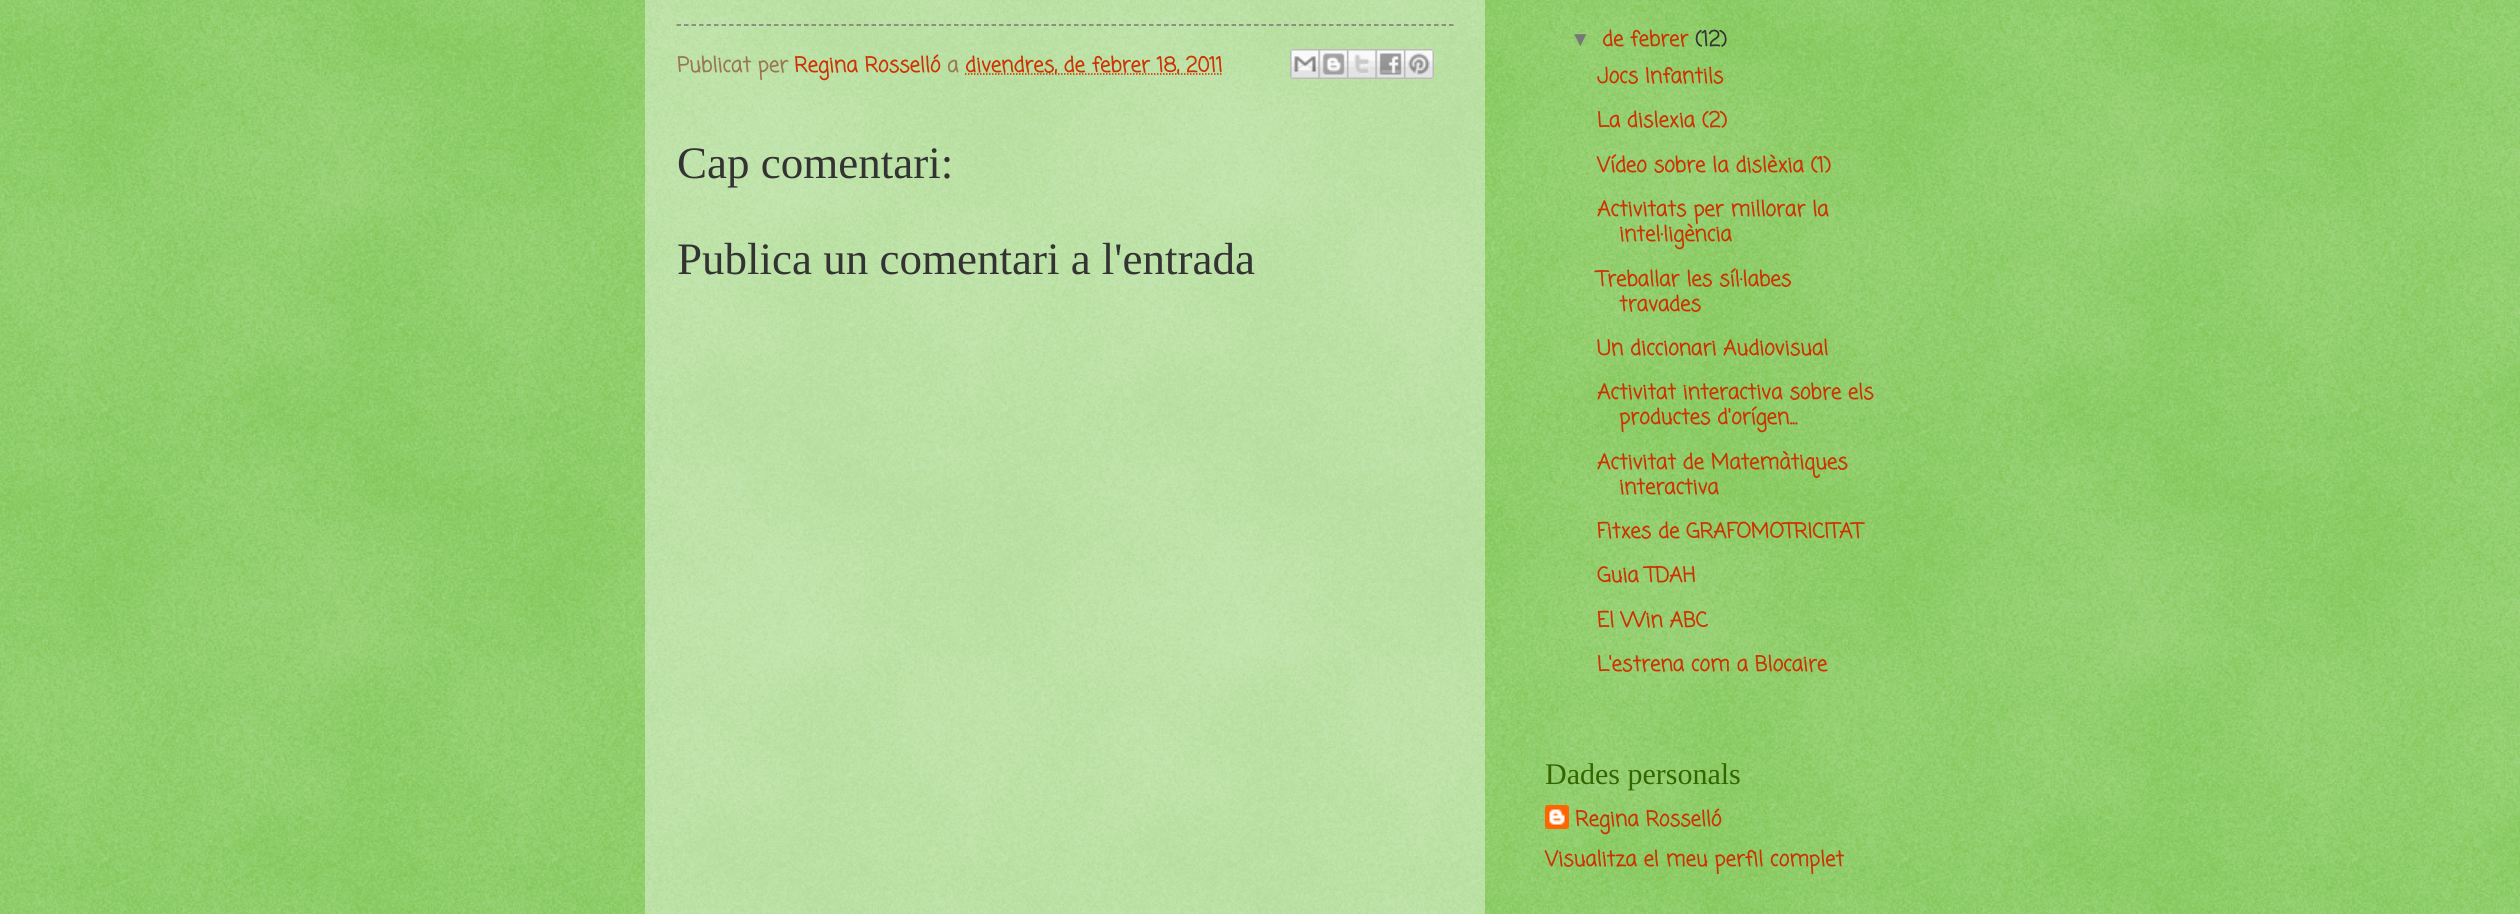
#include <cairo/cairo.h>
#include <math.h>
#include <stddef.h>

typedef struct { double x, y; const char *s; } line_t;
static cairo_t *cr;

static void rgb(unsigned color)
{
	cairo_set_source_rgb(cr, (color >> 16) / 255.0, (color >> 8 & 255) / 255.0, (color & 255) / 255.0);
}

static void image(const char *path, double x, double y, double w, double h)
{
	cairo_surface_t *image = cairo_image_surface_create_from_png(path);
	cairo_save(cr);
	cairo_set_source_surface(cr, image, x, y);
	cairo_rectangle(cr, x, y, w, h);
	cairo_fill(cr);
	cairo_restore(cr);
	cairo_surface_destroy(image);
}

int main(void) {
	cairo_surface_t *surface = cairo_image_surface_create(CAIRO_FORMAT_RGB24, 2520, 914);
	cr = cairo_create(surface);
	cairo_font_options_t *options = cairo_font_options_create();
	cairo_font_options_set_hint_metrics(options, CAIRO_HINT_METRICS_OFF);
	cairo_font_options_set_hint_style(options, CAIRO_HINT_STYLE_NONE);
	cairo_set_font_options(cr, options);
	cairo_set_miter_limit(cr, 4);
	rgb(0x66bb33);
	cairo_paint(cr);
	image("img/1.png", 0, 0, 2520, 914);
	cairo_set_source_rgba(cr, 1, 1, 1, 0.4);
	cairo_rectangle(cr, 645, 0, 840, 914);
	cairo_fill(cr);
	cairo_new_path(cr);
	cairo_move_to(cr, 676.5, 25);
	cairo_line_to(cr, 1453.5, 25);
	rgb(0x777777);
	cairo_set_line_width(cr, 1.5);
	cairo_set_dash(cr, (double[]){4.5, 3}, 2, 0);
	cairo_stroke(cr);
	cairo_new_path(cr);
	cairo_move_to(cr, 965, 74);
	cairo_line_to(cr, 1222, 74);
	rgb(0xcc3300);
	cairo_set_dash(cr, (double[]){1.5, 1.5}, 2, 0);
	cairo_stroke(cr);
	image("img/2.png", 1290, 49, 29, 30);
	image("img/3.png", 1318, 49, 29, 30);
	image("img/4.png", 1347, 49, 29, 30);
	image("img/5.png", 1375, 49, 29, 30);
	image("img/6.png", 1404, 49, 30, 30);
	image("img/7.png", 1545, 805, 24, 24);
	cairo_select_font_face(cr, "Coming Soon", CAIRO_FONT_SLANT_NORMAL, CAIRO_FONT_WEIGHT_BOLD);
	cairo_set_font_size(cr, 20.75);
	rgb(0x997755);
	cairo_move_to(cr, 677, 72);
	cairo_show_text(cr, "Publicat per");
	rgb(0xcc3300);
	cairo_move_to(cr, 794, 72);
	cairo_show_text(cr, "Regina Rosselló");
	rgb(0x997755);
	cairo_move_to(cr, 947, 72);
	cairo_show_text(cr, "a");
	rgb(0xcc3300);
	cairo_move_to(cr, 965, 72);
	cairo_show_text(cr, "divendres, de febrer 18, 2011");
	cairo_select_font_face(cr, "Liberation Serif", CAIRO_FONT_SLANT_NORMAL, CAIRO_FONT_WEIGHT_NORMAL);
	cairo_set_font_size(cr, 45);
	rgb(0x333333);
	cairo_move_to(cr, 677, 178);
	cairo_show_text(cr, "Cap comentari:");
	cairo_move_to(cr, 677, 274);
	cairo_show_text(cr, "Publica un comentari a l'entrada");
	cairo_select_font_face(cr, "Liberation Sans", CAIRO_FONT_SLANT_NORMAL, CAIRO_FONT_WEIGHT_BOLD);
	cairo_set_font_size(cr, 20.75);
	rgb(0x777777);
	cairo_move_to(cr, 1570, 46);
	cairo_show_text(cr, "▼");
	cairo_select_font_face(cr, "Coming Soon", CAIRO_FONT_SLANT_NORMAL, CAIRO_FONT_WEIGHT_BOLD);
	rgb(0xcc3300);
	cairo_move_to(cr, 1602, 46);
	cairo_show_text(cr, "de febrer");
	rgb(0x333333);
	cairo_move_to(cr, 1695, 46);
	cairo_show_text(cr, "(12)");
	rgb(0xcc3300);
	{
		static const line_t items[] = {
			{1597, 83, "Jocs Infantils"},
			{1597, 127, "La dislexia (2)"},
			{1597, 172, "Vídeo sobre la dislèxia (1)"},
			{1597, 216, "Activitats per millorar la"},
			{1619, 241, "intel·ligència"},
			{1597, 286, "Treballar les síl·labes"},
			{1619, 311, "travades"},
			{1597, 355, "Un diccionari Audiovisual"},
			{1597, 399, "Activitat interactiva sobre els"},
			{1619, 424, "productes d'orígen..."},
			{1597, 469, "Activitat de Matemàtiques"},
			{1619, 494, "interactiva"},
			{1597, 538, "Fitxes de GRAFOMOTRICITAT"},
			{1597, 582, "Guia TDAH"},
			{1597, 627, "El Win ABC"},
			{1597, 671, "L'estrena com a Blocaire"},
		};
		for (size_t i = 0; i < sizeof items / sizeof *items; i++) {
			cairo_move_to(cr, items[i].x, items[i].y);
			cairo_show_text(cr, items[i].s);
		}
	}
	cairo_select_font_face(cr, "Liberation Serif", CAIRO_FONT_SLANT_NORMAL, CAIRO_FONT_WEIGHT_NORMAL);
	cairo_set_font_size(cr, 30);
	rgb(0x336600);
	cairo_move_to(cr, 1545, 784);
	cairo_show_text(cr, "Dades personals");
	cairo_select_font_face(cr, "Coming Soon", CAIRO_FONT_SLANT_NORMAL, CAIRO_FONT_WEIGHT_BOLD);
	cairo_set_font_size(cr, 20.75);
	rgb(0xcc3300);
	cairo_move_to(cr, 1575, 826);
	cairo_show_text(cr, "Regina Rosselló");
	cairo_move_to(cr, 1545, 866);
	cairo_show_text(cr, "Visualitza el meu perfil complet");
	cairo_surface_write_to_png(surface, "page.png");
	cairo_font_options_destroy(options);
	cairo_destroy(cr);
	cairo_surface_destroy(surface);
	return 0;
}
